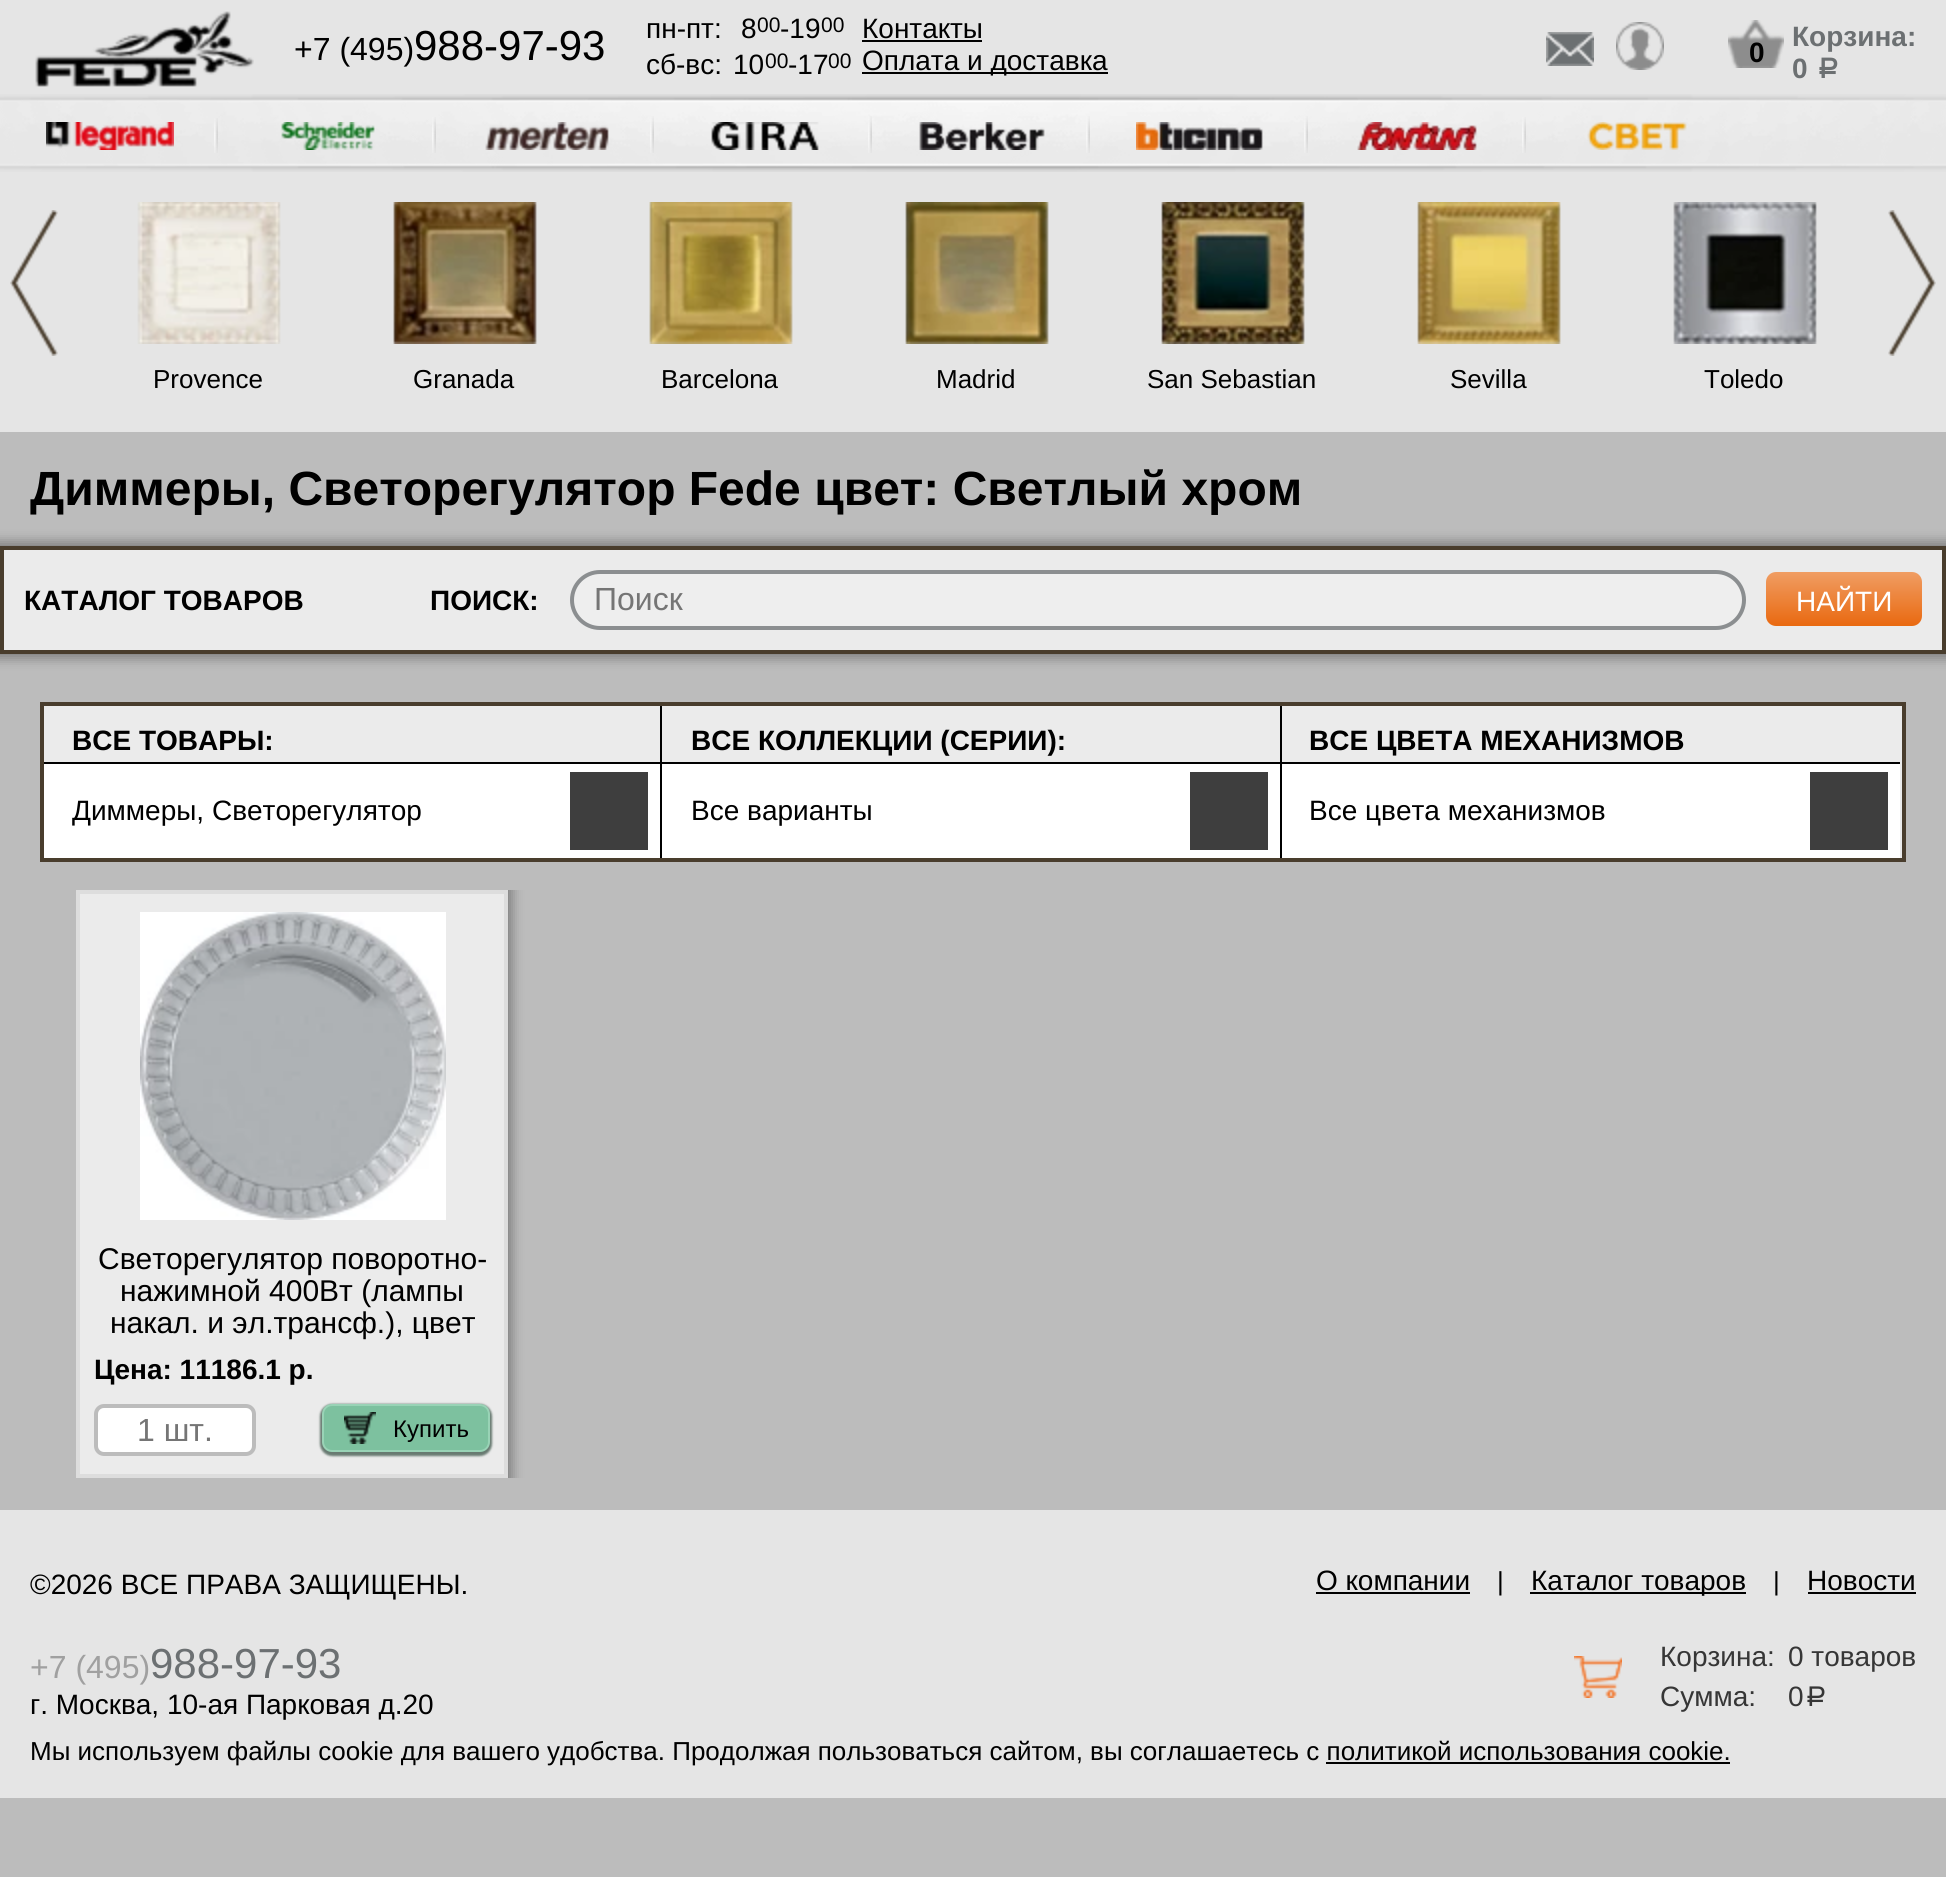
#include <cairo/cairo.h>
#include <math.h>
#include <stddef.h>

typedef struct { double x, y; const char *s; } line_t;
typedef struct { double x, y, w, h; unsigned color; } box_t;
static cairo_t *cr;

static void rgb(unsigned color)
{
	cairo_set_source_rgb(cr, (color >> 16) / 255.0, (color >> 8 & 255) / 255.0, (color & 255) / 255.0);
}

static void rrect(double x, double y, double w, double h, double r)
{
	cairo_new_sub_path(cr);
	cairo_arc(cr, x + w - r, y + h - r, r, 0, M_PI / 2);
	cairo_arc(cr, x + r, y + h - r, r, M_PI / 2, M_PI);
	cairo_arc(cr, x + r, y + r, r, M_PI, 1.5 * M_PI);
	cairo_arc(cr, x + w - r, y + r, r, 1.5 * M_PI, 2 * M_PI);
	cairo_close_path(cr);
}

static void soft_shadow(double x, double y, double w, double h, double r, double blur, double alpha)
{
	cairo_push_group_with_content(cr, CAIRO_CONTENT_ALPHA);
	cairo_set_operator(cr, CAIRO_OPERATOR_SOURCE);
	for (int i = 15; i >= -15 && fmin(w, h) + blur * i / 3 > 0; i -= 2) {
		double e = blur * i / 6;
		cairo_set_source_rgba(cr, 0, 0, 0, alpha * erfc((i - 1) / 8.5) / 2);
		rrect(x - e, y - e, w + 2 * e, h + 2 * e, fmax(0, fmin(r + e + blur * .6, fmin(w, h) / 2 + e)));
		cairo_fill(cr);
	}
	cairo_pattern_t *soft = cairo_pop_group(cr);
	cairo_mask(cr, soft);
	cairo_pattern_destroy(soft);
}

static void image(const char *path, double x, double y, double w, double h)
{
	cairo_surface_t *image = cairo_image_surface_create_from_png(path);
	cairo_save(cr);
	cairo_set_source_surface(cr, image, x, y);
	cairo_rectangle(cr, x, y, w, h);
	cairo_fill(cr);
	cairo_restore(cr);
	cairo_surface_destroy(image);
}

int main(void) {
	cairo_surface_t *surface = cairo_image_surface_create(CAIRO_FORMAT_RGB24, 1946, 1877);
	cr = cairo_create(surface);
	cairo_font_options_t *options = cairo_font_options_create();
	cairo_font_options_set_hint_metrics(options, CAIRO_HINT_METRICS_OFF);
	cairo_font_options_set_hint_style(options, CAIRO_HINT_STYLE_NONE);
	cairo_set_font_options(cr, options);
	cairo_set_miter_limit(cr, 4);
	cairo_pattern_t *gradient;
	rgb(0xbcbcbc);
	cairo_paint(cr);
	rgb(0xe5e5e5);
	cairo_rectangle(cr, 0, 0, 1946, 432);
	cairo_fill(cr);
	image("img/1.png", 35, 11, 219, 76);
	rgb(0x000000);
	cairo_rectangle(cr, 862, 40, 120, 2);
	cairo_fill(cr);
	cairo_rectangle(cr, 862, 72, 246, 2);
	cairo_fill(cr);
	image("img/2.png", 1546, 32, 48, 34);
	image("img/3.png", 1616, 22, 48, 48);
	image("img/4.png", 1728, 20, 56, 48);
	image("img/5.png", 0, 94, 1946, 78);
	image("img/6.png", 46, 122, 128, 28);
	image("img/7.png", 214, 118, 4, 35);
	image("img/8.png", 281, 122, 94, 28);
	image("img/9.png", 432, 117, 4, 36);
	image("img/10.png", 485, 122, 124, 28);
	image("img/11.png", 650, 116, 4, 37);
	image("img/12.png", 711, 122, 108, 28);
	image("img/13.png", 868, 116, 4, 37);
	image("img/14.png", 919, 122, 126, 28);
	image("img/15.png", 1086, 116, 4, 37);
	image("img/16.png", 1136, 122, 127, 28);
	image("img/17.png", 1304, 116, 4, 37);
	image("img/18.png", 1357, 122, 120, 28);
	image("img/19.png", 1522, 117, 4, 36);
	image("img/20.png", 1587, 122, 100, 28);
	image("img/21.png", 10, 210, 48, 146);
	image("img/22.png", 1888, 210, 48, 146);
	image("img/23.png", 137, 202, 144, 142);
	image("img/24.png", 393, 202, 144, 142);
	image("img/25.png", 649, 202, 144, 142);
	image("img/26.png", 905, 202, 144, 142);
	image("img/27.png", 1161, 202, 144, 142);
	image("img/28.png", 1417, 202, 144, 142);
	image("img/29.png", 1673, 202, 144, 142);
	rgb(0x000000);
	soft_shadow(-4, 542, 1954, 116, 0, 6, 0.34);
	rgb(0xebebeb);
	cairo_rectangle(cr, 2, 548, 1942, 104);
	cairo_fill_preserve(cr);
	rgb(0x493d2d);
	cairo_set_line_width(cr, 4);
	cairo_stroke(cr);
	rgb(0xeeeeee);
	rrect(572, 572, 1172, 56, 28);
	cairo_fill_preserve(cr);
	rgb(0x8b8e90);
	cairo_stroke(cr);
	gradient = cairo_pattern_create_linear(1844, 572, 1844, 626);
	cairo_pattern_add_color_stop_rgba(gradient, 0, 0.941, 0.616, 0.388, 1);
	cairo_pattern_add_color_stop_rgba(gradient, 1, 0.914, 0.412, 0.063, 1);
	cairo_set_source(cr, gradient);
	cairo_pattern_destroy(gradient);
	rrect(1766, 572, 156, 54, 10);
	cairo_fill(cr);
	rgb(0xebebeb);
	cairo_rectangle(cr, 42, 704, 1862, 156);
	cairo_fill_preserve(cr);
	rgb(0x493d2d);
	cairo_stroke(cr);
	{
		static const box_t items[] = {
			{660, 706, 2, 152, 0x000000},
			{44, 762, 616, 2, 0x000000},
			{44, 764, 616, 94, 0xffffff},
			{570, 772, 78, 78, 0x3e3e3e},
			{1280, 706, 2, 152, 0x000000},
			{662, 762, 618, 2, 0x000000},
			{662, 764, 618, 94, 0xffffff},
			{1190, 772, 78, 78, 0x3e3e3e},
			{1282, 762, 618, 2, 0x000000},
			{1282, 764, 618, 94, 0xffffff},
			{1810, 772, 78, 78, 0x3e3e3e},
		};
		for (size_t i = 0; i < sizeof items / sizeof *items; i++) {
			rgb(items[i].color);
			cairo_rectangle(cr, items[i].x, items[i].y, items[i].w, items[i].h);
			cairo_fill(cr);
		}
	}
	cairo_save(cr);
	cairo_rectangle(cr, 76, 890, 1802, 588);
	cairo_clip(cr);
	rgb(0x000000);
	soft_shadow(72, 886, 440, 596, 0, 6, 0.34);
	cairo_restore(cr);
	rgb(0xebebeb);
	cairo_rectangle(cr, 78, 892, 428, 584);
	cairo_fill_preserve(cr);
	rgb(0xdddddd);
	cairo_stroke(cr);
	image("img/30.png", 140, 912, 306, 308);
	rgb(0xffffff);
	rrect(96, 1406, 158, 48, 8);
	cairo_fill_preserve(cr);
	rgb(0xbcbcbc);
	cairo_stroke(cr);
	rgb(0x687a71);
	soft_shadow(320, 1404, 172, 52, 12, 1, 1);
	rgb(0x7dc19f);
	rrect(323, 1405, 166, 46, 9);
	cairo_fill_preserve(cr);
	rgb(0x99d3b6);
	cairo_set_line_width(cr, 2);
	cairo_stroke(cr);
	image("img/31.png", 344, 1412, 32, 32);
	{
		static const box_t items[] = {
			{0, 1510, 1946, 288, 0xe5e5e5},
			{1316, 1592, 154, 2, 0x000000},
			{1530, 1592, 216, 2, 0x000000},
			{1808, 1592, 108, 2, 0x000000},
		};
		for (size_t i = 0; i < sizeof items / sizeof *items; i++) {
			rgb(items[i].color);
			cairo_rectangle(cr, items[i].x, items[i].y, items[i].w, items[i].h);
			cairo_fill(cr);
		}
	}
	image("img/32.png", 1574, 1656, 48, 42);
	cairo_rectangle(cr, 1326, 1762, 404, 2);
	cairo_fill(cr);
	cairo_select_font_face(cr, "Liberation Sans", CAIRO_FONT_SLANT_NORMAL, CAIRO_FONT_WEIGHT_NORMAL);
	cairo_set_font_size(cr, 32);
	cairo_move_to(cr, 294, 60);
	cairo_show_text(cr, "+7 (495)");
	cairo_set_font_size(cr, 42);
	cairo_move_to(cr, 414, 60);
	cairo_show_text(cr, "988-97-93");
	cairo_set_font_size(cr, 28);
	cairo_move_to(cr, 646, 38);
	cairo_show_text(cr, "пн-пт:");
	cairo_move_to(cr, 741, 38);
	cairo_show_text(cr, "8");
	cairo_set_font_size(cr, 21);
	cairo_move_to(cr, 757, 32);
	cairo_show_text(cr, "00");
	cairo_set_font_size(cr, 28);
	cairo_move_to(cr, 780, 38);
	cairo_show_text(cr, "-19");
	cairo_set_font_size(cr, 21);
	cairo_move_to(cr, 821, 32);
	cairo_show_text(cr, "00");
	cairo_set_font_size(cr, 28);
	cairo_move_to(cr, 646, 74);
	cairo_show_text(cr, "сб-вс:");
	cairo_move_to(cr, 733, 74);
	cairo_show_text(cr, "10");
	cairo_set_font_size(cr, 21);
	cairo_move_to(cr, 765, 68);
	cairo_show_text(cr, "00");
	cairo_set_font_size(cr, 28);
	cairo_move_to(cr, 788, 74);
	cairo_show_text(cr, "-17");
	cairo_set_font_size(cr, 21);
	cairo_move_to(cr, 828, 68);
	cairo_show_text(cr, "00");
	cairo_set_font_size(cr, 28);
	cairo_move_to(cr, 862, 38);
	cairo_show_text(cr, "Контакты");
	cairo_move_to(cr, 862, 70);
	cairo_show_text(cr, "Оплата и доставка");
	cairo_select_font_face(cr, "Liberation Sans", CAIRO_FONT_SLANT_NORMAL, CAIRO_FONT_WEIGHT_BOLD);
	cairo_move_to(cr, 1749, 62);
	cairo_show_text(cr, "0");
	rgb(0x6c7072);
	cairo_move_to(cr, 1792, 46);
	cairo_show_text(cr, "Корзина:");
	cairo_move_to(cr, 1792, 78);
	cairo_show_text(cr, "0");
	cairo_select_font_face(cr, "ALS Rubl", CAIRO_FONT_SLANT_NORMAL, CAIRO_FONT_WEIGHT_BOLD);
	cairo_move_to(cr, 1815, 78);
	cairo_show_text(cr, "a");
	cairo_select_font_face(cr, "Liberation Sans", CAIRO_FONT_SLANT_NORMAL, CAIRO_FONT_WEIGHT_NORMAL);
	cairo_set_font_size(cr, 26);
	rgb(0x000000);
	{
		static const line_t items[] = {
			{153, 388, "Provence"},
			{413, 388, "Granada"},
			{661, 388, "Barcelona"},
			{936, 388, "Madrid"},
			{1147, 388, "San Sebastian"},
			{1450, 388, "Sevilla"},
			{1704, 388, "Toledo"},
		};
		for (size_t i = 0; i < sizeof items / sizeof *items; i++) {
			cairo_move_to(cr, items[i].x, items[i].y);
			cairo_show_text(cr, items[i].s);
		}
	}
	cairo_select_font_face(cr, "Liberation Sans", CAIRO_FONT_SLANT_NORMAL, CAIRO_FONT_WEIGHT_BOLD);
	cairo_set_font_size(cr, 48);
	cairo_move_to(cr, 30, 505);
	cairo_show_text(cr, "Диммеры, Светорегулятор Fede цвет: Светлый хром");
	cairo_set_font_size(cr, 28);
	cairo_move_to(cr, 24, 610);
	cairo_show_text(cr, "КАТАЛОГ ТОВАРОВ");
	cairo_move_to(cr, 430, 610);
	cairo_show_text(cr, "ПОИСК:");
	cairo_select_font_face(cr, "Liberation Sans", CAIRO_FONT_SLANT_NORMAL, CAIRO_FONT_WEIGHT_NORMAL);
	cairo_set_font_size(cr, 32);
	rgb(0x757575);
	cairo_move_to(cr, 594, 610);
	cairo_show_text(cr, "Поиск");
	cairo_set_font_size(cr, 28);
	rgb(0xffffff);
	cairo_move_to(cr, 1796, 611);
	cairo_show_text(cr, "НАЙТИ");
	cairo_select_font_face(cr, "Liberation Sans", CAIRO_FONT_SLANT_NORMAL, CAIRO_FONT_WEIGHT_BOLD);
	rgb(0x000000);
	cairo_move_to(cr, 72, 750);
	cairo_show_text(cr, "ВСЕ ТОВАРЫ:");
	cairo_select_font_face(cr, "Liberation Sans", CAIRO_FONT_SLANT_NORMAL, CAIRO_FONT_WEIGHT_NORMAL);
	cairo_move_to(cr, 72, 820);
	cairo_show_text(cr, "Диммеры, Светорегулятор");
	cairo_select_font_face(cr, "Liberation Sans", CAIRO_FONT_SLANT_NORMAL, CAIRO_FONT_WEIGHT_BOLD);
	cairo_move_to(cr, 691, 750);
	cairo_show_text(cr, "ВСЕ КОЛЛЕКЦИИ (СЕРИИ):");
	cairo_select_font_face(cr, "Liberation Sans", CAIRO_FONT_SLANT_NORMAL, CAIRO_FONT_WEIGHT_NORMAL);
	cairo_move_to(cr, 691, 820);
	cairo_show_text(cr, "Все варианты");
	cairo_select_font_face(cr, "Liberation Sans", CAIRO_FONT_SLANT_NORMAL, CAIRO_FONT_WEIGHT_BOLD);
	cairo_move_to(cr, 1309, 750);
	cairo_show_text(cr, "ВСЕ ЦВЕТА МЕХАНИЗМОВ");
	cairo_select_font_face(cr, "Liberation Sans", CAIRO_FONT_SLANT_NORMAL, CAIRO_FONT_WEIGHT_NORMAL);
	cairo_move_to(cr, 1309, 820);
	cairo_show_text(cr, "Все цвета механизмов");
	cairo_set_font_size(cr, 30);
	{
		static const line_t items[] = {
			{98, 1269, "Светорегулятор поворотно-"},
			{120, 1301, "нажимной 400Вт (лампы"},
			{110, 1333, "накал. и эл.трансф.), цвет"},
		};
		for (size_t i = 0; i < sizeof items / sizeof *items; i++) {
			cairo_move_to(cr, items[i].x, items[i].y);
			cairo_show_text(cr, items[i].s);
		}
	}
	cairo_select_font_face(cr, "Liberation Sans", CAIRO_FONT_SLANT_NORMAL, CAIRO_FONT_WEIGHT_BOLD);
	cairo_set_font_size(cr, 28);
	cairo_move_to(cr, 94, 1379);
	cairo_show_text(cr, "Цена: 11186.1 р.");
	cairo_select_font_face(cr, "Liberation Sans", CAIRO_FONT_SLANT_NORMAL, CAIRO_FONT_WEIGHT_NORMAL);
	cairo_set_font_size(cr, 32);
	rgb(0x757575);
	cairo_move_to(cr, 137, 1441);
	cairo_show_text(cr, "1 шт.");
	cairo_set_font_size(cr, 24);
	rgb(0x000000);
	cairo_move_to(cr, 393, 1437);
	cairo_show_text(cr, "Купить");
	cairo_set_font_size(cr, 28);
	cairo_move_to(cr, 30, 1594);
	cairo_show_text(cr, "©2026 ВСЕ ПРАВА ЗАЩИЩЕНЫ.");
	cairo_move_to(cr, 1316, 1590);
	cairo_show_text(cr, "О компании");
	cairo_set_font_size(cr, 26);
	cairo_move_to(cr, 1497, 1590);
	cairo_show_text(cr, "|");
	cairo_set_font_size(cr, 28);
	cairo_move_to(cr, 1531, 1590);
	cairo_show_text(cr, "Каталог товаров");
	cairo_set_font_size(cr, 26);
	cairo_move_to(cr, 1773, 1590);
	cairo_show_text(cr, "|");
	cairo_set_font_size(cr, 28);
	cairo_move_to(cr, 1807, 1590);
	cairo_show_text(cr, "Новости");
	cairo_set_font_size(cr, 32);
	rgb(0xa0a0a0);
	cairo_move_to(cr, 30, 1678);
	cairo_show_text(cr, "+7 (495)");
	cairo_set_font_size(cr, 42);
	rgb(0x6c7072);
	cairo_move_to(cr, 150, 1678);
	cairo_show_text(cr, "988-97-93");
	cairo_set_font_size(cr, 28);
	rgb(0x000000);
	cairo_move_to(cr, 30, 1714);
	cairo_show_text(cr, "г. Москва, 10-ая Парковая д.20");
	rgb(0x363636);
	{
		static const line_t items[] = {
			{1660, 1666, "Корзина:"},
			{1788, 1666, "0 товаров"},
			{1660, 1706, "Сумма:"},
			{1788, 1706, "0"},
		};
		for (size_t i = 0; i < sizeof items / sizeof *items; i++) {
			cairo_move_to(cr, items[i].x, items[i].y);
			cairo_show_text(cr, items[i].s);
		}
	}
	cairo_select_font_face(cr, "ALS Rubl", CAIRO_FONT_SLANT_NORMAL, CAIRO_FONT_WEIGHT_NORMAL);
	cairo_move_to(cr, 1803, 1706);
	cairo_show_text(cr, "a");
	cairo_select_font_face(cr, "Liberation Sans", CAIRO_FONT_SLANT_NORMAL, CAIRO_FONT_WEIGHT_NORMAL);
	cairo_set_font_size(cr, 26);
	rgb(0x000000);
	cairo_move_to(cr, 30, 1760);
	cairo_show_text(cr, "Мы используем файлы cookie для вашего удобства. Продолжая пользоваться сайтом, вы соглашаетесь с политикой использования cookie.");
	cairo_surface_write_to_png(surface, "page.png");
	cairo_font_options_destroy(options);
	cairo_destroy(cr);
	cairo_surface_destroy(surface);
	return 0;
}
